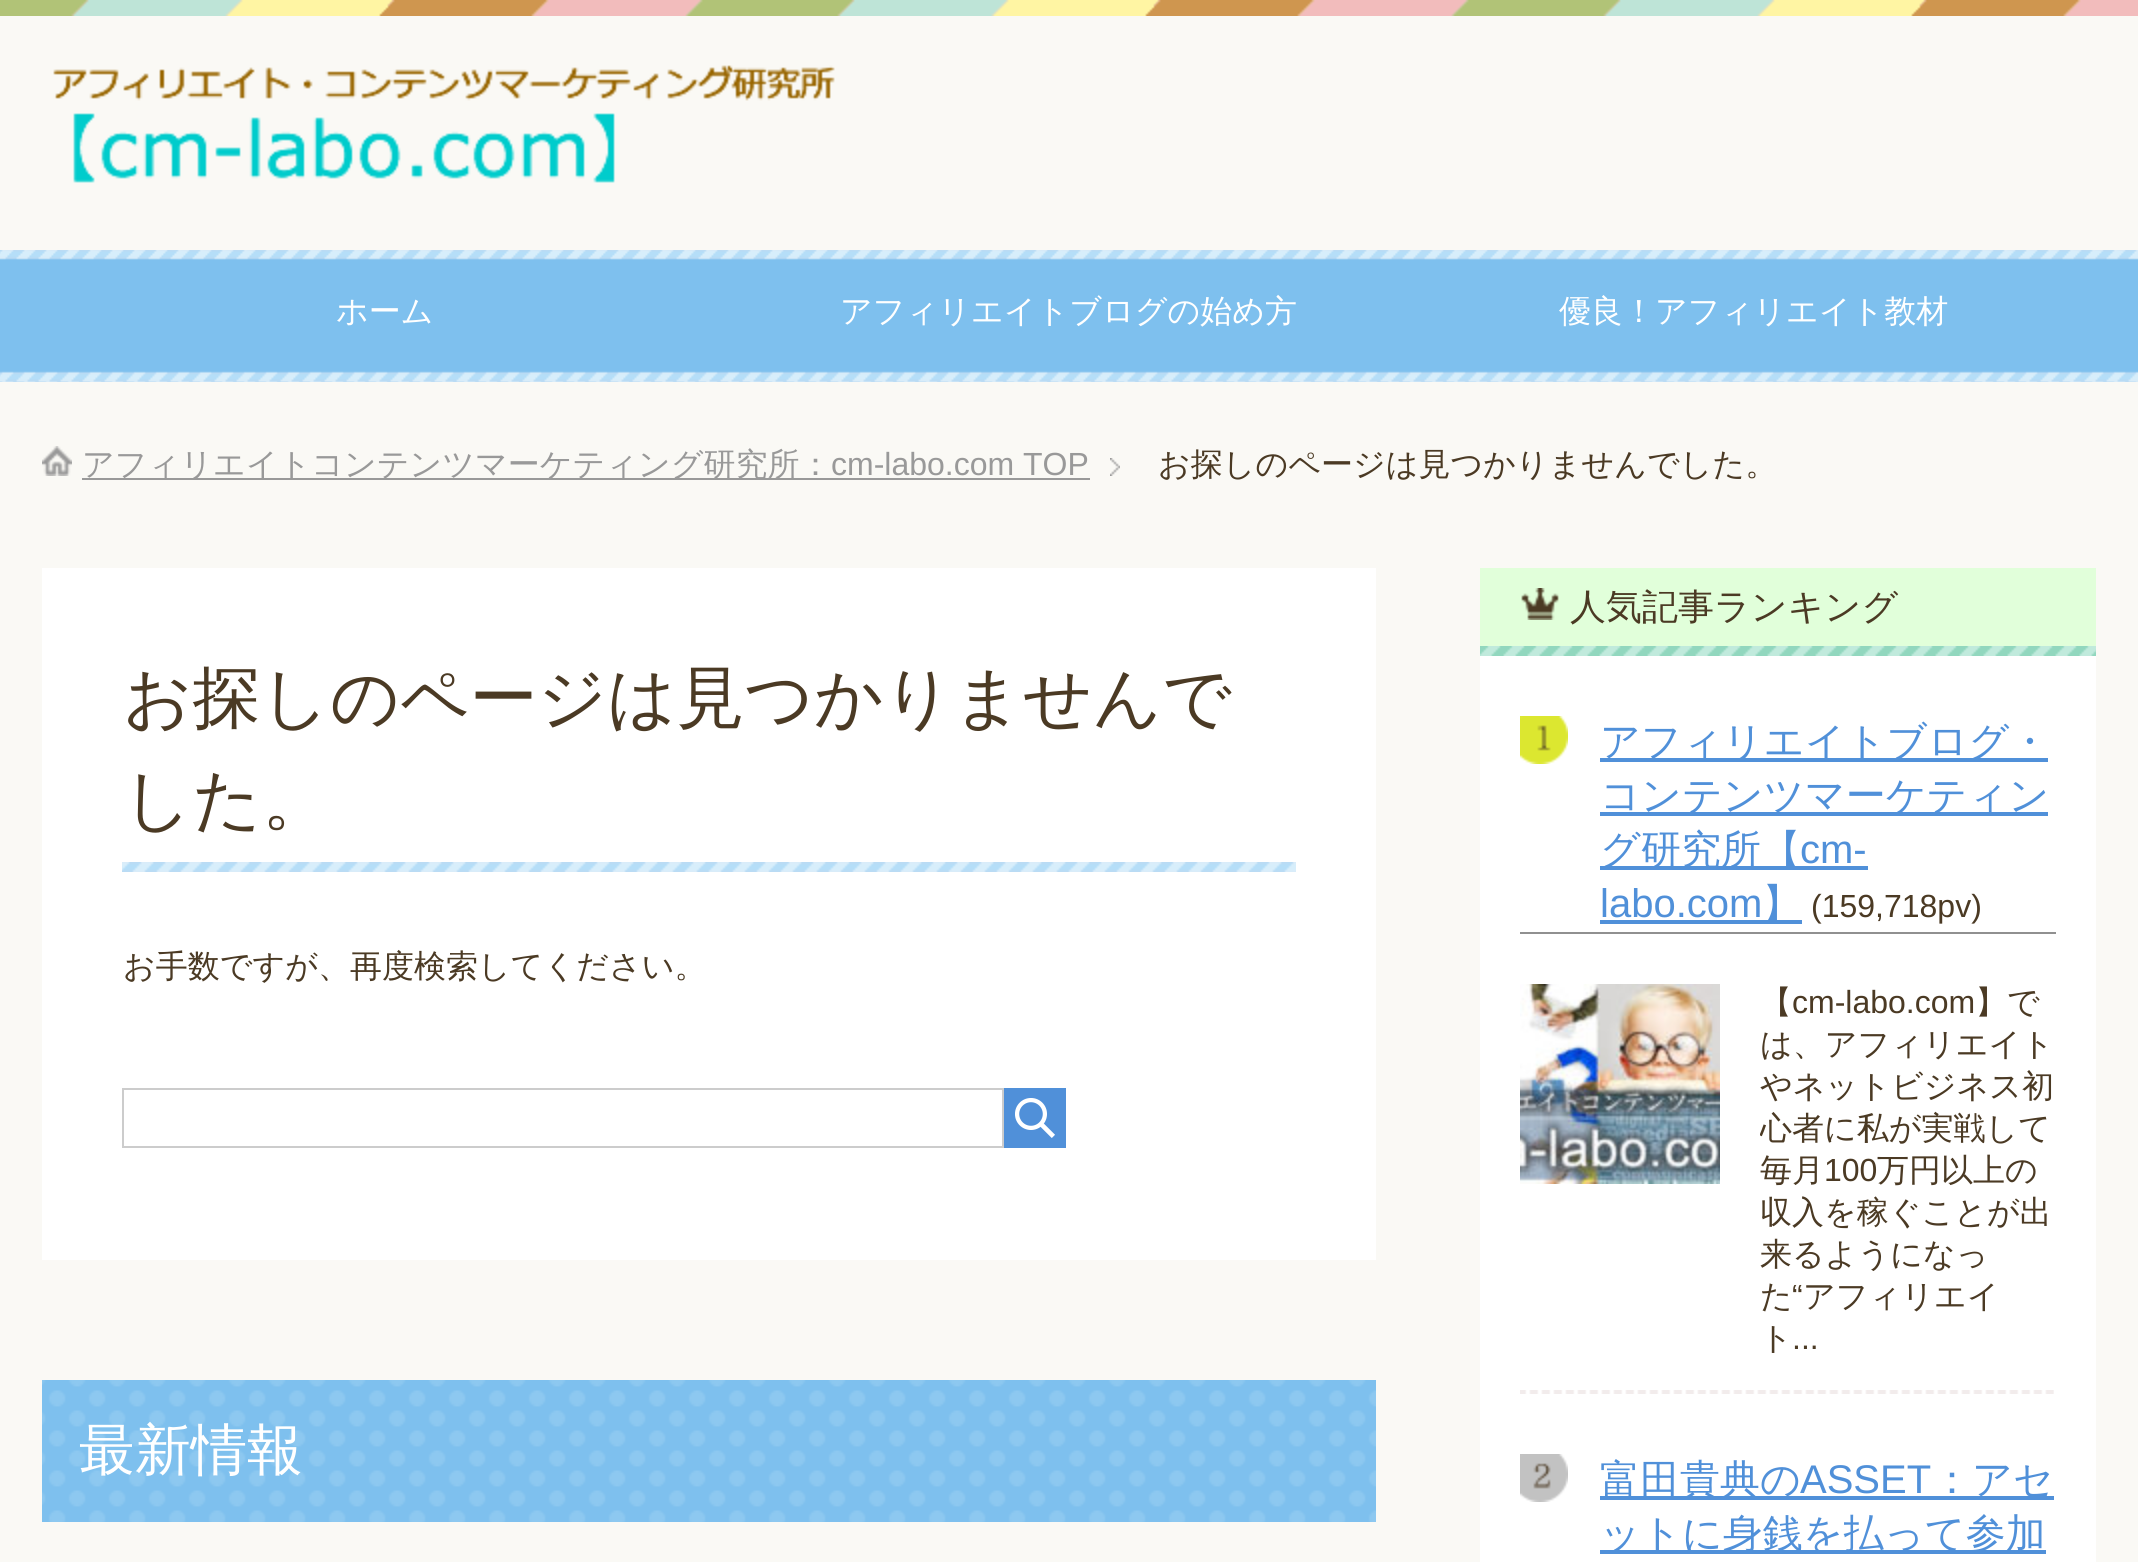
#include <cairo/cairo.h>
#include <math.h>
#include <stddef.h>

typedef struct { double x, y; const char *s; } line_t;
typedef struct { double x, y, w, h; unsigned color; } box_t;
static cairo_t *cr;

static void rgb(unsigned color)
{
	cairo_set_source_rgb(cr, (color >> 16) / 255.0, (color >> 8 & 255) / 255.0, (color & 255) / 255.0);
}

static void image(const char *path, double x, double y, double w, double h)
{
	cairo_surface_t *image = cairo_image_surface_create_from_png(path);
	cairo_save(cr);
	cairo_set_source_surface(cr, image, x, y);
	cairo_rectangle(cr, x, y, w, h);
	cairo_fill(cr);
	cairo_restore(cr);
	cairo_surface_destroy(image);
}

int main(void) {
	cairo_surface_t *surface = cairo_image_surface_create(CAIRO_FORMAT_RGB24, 2138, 1562);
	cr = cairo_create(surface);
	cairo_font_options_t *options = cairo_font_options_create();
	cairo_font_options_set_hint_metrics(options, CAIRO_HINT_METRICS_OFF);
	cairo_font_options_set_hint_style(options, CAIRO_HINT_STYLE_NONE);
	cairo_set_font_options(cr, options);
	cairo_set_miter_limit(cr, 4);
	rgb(0xfaf9f5);
	cairo_paint(cr);
	image("img/1.png", 0, 0, 2138, 16);
	image("img/2.png", 53, 65, 782, 118);
	image("img/3.png", 0, 250, 2138, 132);
	image("img/4.png", 1110, 458, 10, 18);
	image("img/5.png", 42, 446, 30, 30);
	rgb(0x999999);
	cairo_rectangle(cr, 82, 478, 1008, 2);
	cairo_fill(cr);
	rgb(0xffffff);
	cairo_rectangle(cr, 42, 568, 1334, 692);
	cairo_fill(cr);
	image("img/6.png", 122, 862, 1174, 10);
	cairo_rectangle(cr, 123, 1089, 880, 58);
	rgb(0xcccccc);
	cairo_stroke(cr);
	rgb(0x5090d9);
	cairo_rectangle(cr, 1004, 1088, 62, 60);
	cairo_fill(cr);
	image("img/7.png", 1015, 1098, 40, 40);
	image("img/8.png", 42, 1380, 1334, 142);
	rgb(0xffffff);
	cairo_rectangle(cr, 1480, 656, 616, 906);
	cairo_fill(cr);
	rgb(0xe1ffda);
	cairo_rectangle(cr, 1480, 568, 616, 78);
	cairo_fill(cr);
	image("img/9.png", 1480, 646, 616, 10);
	image("img/10.png", 1521, 588, 38, 32);
	image("img/11.png", 1520, 1390, 534, 4);
	image("img/12.png", 1520, 716, 48, 48);
	{
		static const box_t items[] = {
			{1520, 932, 536, 2, 0x909090},
			{1600, 758, 448, 4, 0x5090d9},
			{1600, 812, 448, 4, 0x5090d9},
			{1600, 866, 268, 4, 0x5090d9},
			{1600, 920, 202, 4, 0x5090d9},
		};
		for (size_t i = 0; i < sizeof items / sizeof *items; i++) {
			rgb(items[i].color);
			cairo_rectangle(cr, items[i].x, items[i].y, items[i].w, items[i].h);
			cairo_fill(cr);
		}
	}
	image("img/13.png", 1520, 984, 200, 200);
	image("img/14.png", 1520, 1454, 48, 48);
	cairo_rectangle(cr, 1600, 1496, 454, 4);
	cairo_fill(cr);
	cairo_rectangle(cr, 1600, 1550, 446, 4);
	cairo_fill(cr);
	cairo_select_font_face(cr, "WenQuanYi Zen Hei Medium", CAIRO_FONT_SLANT_NORMAL, CAIRO_FONT_WEIGHT_NORMAL);
	cairo_set_font_size(cr, 32);
	rgb(0xffffff);
	{
		static const line_t items[] = {
			{336, 322, "ホーム"},
			{840, 322, "アフィリエイトブログの始め方"},
			{1559, 322, "優良！アフィリエイト教材"},
		};
		for (size_t i = 0; i < sizeof items / sizeof *items; i++) {
			cairo_move_to(cr, items[i].x, items[i].y);
			cairo_show_text(cr, items[i].s);
		}
	}
	rgb(0x999999);
	cairo_move_to(cr, 82, 475);
	cairo_show_text(cr, "アフィリエイトコンテンツマーケティング研究所：");
	cairo_select_font_face(cr, "Liberation Sans", CAIRO_FONT_SLANT_NORMAL, CAIRO_FONT_WEIGHT_NORMAL);
	cairo_move_to(cr, 831, 475);
	cairo_show_text(cr, "cm-labo.com TOP");
	cairo_select_font_face(cr, "WenQuanYi Zen Hei Medium", CAIRO_FONT_SLANT_NORMAL, CAIRO_FONT_WEIGHT_NORMAL);
	rgb(0x4b3a24);
	cairo_move_to(cr, 1158, 475);
	cairo_show_text(cr, "お探しのページは見つかりませんでした。");
	cairo_set_font_size(cr, 68);
	cairo_move_to(cr, 123, 721);
	cairo_show_text(cr, "お探しのページは見つかりませんで");
	cairo_move_to(cr, 123, 823);
	cairo_show_text(cr, "した。");
	cairo_set_font_size(cr, 32);
	cairo_move_to(cr, 123, 977);
	cairo_show_text(cr, "お手数ですが、再度検索してください。");
	cairo_set_font_size(cr, 56);
	rgb(0xffffff);
	cairo_move_to(cr, 79, 1469);
	cairo_show_text(cr, "最新情報");
	cairo_set_font_size(cr, 36);
	rgb(0x4b3a24);
	cairo_move_to(cr, 1570, 619);
	cairo_show_text(cr, "人気記事ランキング");
	cairo_set_font_size(cr, 40);
	rgb(0x5090d9);
	{
		static const line_t items[] = {
			{1600, 755, "アフィリエイトブログ・"},
			{1600, 809, "コンテンツマーケティン"},
			{1600, 863, "グ研究所【"},
		};
		for (size_t i = 0; i < sizeof items / sizeof *items; i++) {
			cairo_move_to(cr, items[i].x, items[i].y);
			cairo_show_text(cr, items[i].s);
		}
	}
	cairo_select_font_face(cr, "Liberation Sans", CAIRO_FONT_SLANT_NORMAL, CAIRO_FONT_WEIGHT_NORMAL);
	cairo_move_to(cr, 1800, 863);
	cairo_show_text(cr, "cm-");
	cairo_move_to(cr, 1600, 917);
	cairo_show_text(cr, "labo.com");
	cairo_select_font_face(cr, "WenQuanYi Zen Hei Medium", CAIRO_FONT_SLANT_NORMAL, CAIRO_FONT_WEIGHT_NORMAL);
	cairo_move_to(cr, 1762, 917);
	cairo_show_text(cr, "】");
	cairo_select_font_face(cr, "Liberation Sans", CAIRO_FONT_SLANT_NORMAL, CAIRO_FONT_WEIGHT_NORMAL);
	cairo_set_font_size(cr, 32);
	rgb(0x4b3a24);
	cairo_move_to(cr, 1811, 917);
	cairo_show_text(cr, "(159,718pv)");
	cairo_select_font_face(cr, "WenQuanYi Zen Hei Medium", CAIRO_FONT_SLANT_NORMAL, CAIRO_FONT_WEIGHT_NORMAL);
	cairo_move_to(cr, 1760, 1013);
	cairo_show_text(cr, "【");
	cairo_select_font_face(cr, "Liberation Sans", CAIRO_FONT_SLANT_NORMAL, CAIRO_FONT_WEIGHT_NORMAL);
	cairo_move_to(cr, 1792, 1013);
	cairo_show_text(cr, "cm-labo.com");
	cairo_select_font_face(cr, "WenQuanYi Zen Hei Medium", CAIRO_FONT_SLANT_NORMAL, CAIRO_FONT_WEIGHT_NORMAL);
	{
		static const line_t items[] = {
			{1975, 1013, "】で"},
			{1760, 1055, "は、アフィリエイト"},
			{1760, 1097, "やネットビジネス初"},
		};
		for (size_t i = 0; i < sizeof items / sizeof *items; i++) {
			cairo_move_to(cr, items[i].x, items[i].y);
			cairo_show_text(cr, items[i].s);
		}
	}
	cairo_save(cr);
	cairo_rectangle(cr, 1760, 984, 296, 378);
	cairo_clip(cr);
	cairo_move_to(cr, 1760, 1139);
	cairo_show_text(cr, "心者に私が実戦して");
	cairo_restore(cr);
	cairo_move_to(cr, 1760, 1181);
	cairo_show_text(cr, "毎月");
	cairo_select_font_face(cr, "Liberation Sans", CAIRO_FONT_SLANT_NORMAL, CAIRO_FONT_WEIGHT_NORMAL);
	cairo_move_to(cr, 1824, 1181);
	cairo_show_text(cr, "100");
	cairo_select_font_face(cr, "WenQuanYi Zen Hei Medium", CAIRO_FONT_SLANT_NORMAL, CAIRO_FONT_WEIGHT_NORMAL);
	{
		static const line_t items[] = {
			{1877, 1181, "万円以上の"},
			{1760, 1223, "収入を稼ぐことが出"},
			{1760, 1265, "来るようになっ"},
			{1760, 1307, "た"},
		};
		for (size_t i = 0; i < sizeof items / sizeof *items; i++) {
			cairo_move_to(cr, items[i].x, items[i].y);
			cairo_show_text(cr, items[i].s);
		}
	}
	cairo_select_font_face(cr, "Liberation Sans", CAIRO_FONT_SLANT_NORMAL, CAIRO_FONT_WEIGHT_NORMAL);
	cairo_move_to(cr, 1792, 1307);
	cairo_show_text(cr, "“");
	cairo_select_font_face(cr, "WenQuanYi Zen Hei Medium", CAIRO_FONT_SLANT_NORMAL, CAIRO_FONT_WEIGHT_NORMAL);
	cairo_move_to(cr, 1803, 1307);
	cairo_show_text(cr, "アフィリエイ");
	cairo_move_to(cr, 1760, 1349);
	cairo_show_text(cr, "ト");
	cairo_select_font_face(cr, "Liberation Sans", CAIRO_FONT_SLANT_NORMAL, CAIRO_FONT_WEIGHT_NORMAL);
	cairo_move_to(cr, 1792, 1349);
	cairo_show_text(cr, "...");
	cairo_select_font_face(cr, "WenQuanYi Zen Hei Medium", CAIRO_FONT_SLANT_NORMAL, CAIRO_FONT_WEIGHT_NORMAL);
	cairo_set_font_size(cr, 40);
	rgb(0x5090d9);
	cairo_move_to(cr, 1600, 1493);
	cairo_show_text(cr, "富田貴典の");
	cairo_select_font_face(cr, "Liberation Sans", CAIRO_FONT_SLANT_NORMAL, CAIRO_FONT_WEIGHT_NORMAL);
	cairo_move_to(cr, 1800, 1493);
	cairo_show_text(cr, "ASSET");
	cairo_select_font_face(cr, "WenQuanYi Zen Hei Medium", CAIRO_FONT_SLANT_NORMAL, CAIRO_FONT_WEIGHT_NORMAL);
	cairo_move_to(cr, 1932, 1493);
	cairo_show_text(cr, "：アセ");
	cairo_move_to(cr, 1600, 1547);
	cairo_show_text(cr, "ットに身銭を払って参加");
	cairo_surface_write_to_png(surface, "page.png");
	cairo_font_options_destroy(options);
	cairo_destroy(cr);
	cairo_surface_destroy(surface);
	return 0;
}
